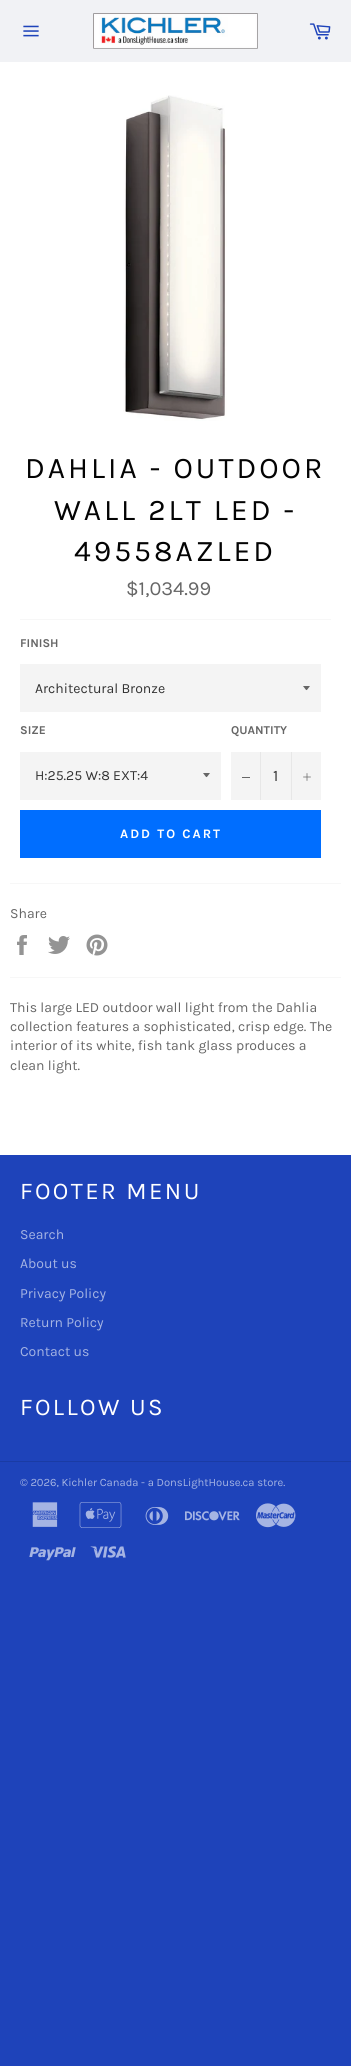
#include <cairo/cairo.h>
#include <math.h>
#include <stddef.h>

typedef struct { double x, y; const char *s; } line_t;
typedef struct { double x, y, w, h; unsigned color; } box_t;
static cairo_t *cr;

static void rgb(unsigned color)
{
	cairo_set_source_rgb(cr, (color >> 16) / 255.0, (color >> 8 & 255) / 255.0, (color & 255) / 255.0);
}

static void tracked(double x, double y, const char *s, double letter, double word)
{
	cairo_move_to(cr, x, y);
	while (*s) {
		char ch[5] = {0};
		int n = 0;
		do ch[n++] = *s++; while ((*s & 0xC0) == 0x80);
		cairo_show_text(cr, ch);
		cairo_rel_move_to(cr, letter + word * (*ch == ' '), 0);
	}
}

static void image(const char *path, double x, double y, double w, double h)
{
	cairo_surface_t *image = cairo_image_surface_create_from_png(path);
	cairo_save(cr);
	cairo_set_source_surface(cr, image, x, y);
	cairo_rectangle(cr, x, y, w, h);
	cairo_fill(cr);
	cairo_restore(cr);
	cairo_surface_destroy(image);
}

int main(void) {
	cairo_surface_t *surface = cairo_image_surface_create(CAIRO_FORMAT_RGB24, 351, 2066);
	cr = cairo_create(surface);
	cairo_font_options_t *options = cairo_font_options_create();
	cairo_font_options_set_hint_metrics(options, CAIRO_HINT_METRICS_OFF);
	cairo_font_options_set_hint_style(options, CAIRO_HINT_STYLE_NONE);
	cairo_set_font_options(cr, options);
	cairo_set_miter_limit(cr, 4);
	rgb(0x1e43ba);
	cairo_paint(cr);
	rgb(0xf1f2f5);
	cairo_rectangle(cr, 0, 0, 351, 62);
	cairo_fill(cr);
	image("img/1.png", 23, 25, 16, 12);
	image("img/2.png", 93, 13, 165, 36);
	image("img/3.png", 309, 23, 22, 17);
	rgb(0xffffff);
	cairo_rectangle(cr, 0, 62, 351, 1093);
	cairo_fill(cr);
	image("img/4.png", 123, 95, 104, 326);
	rgb(0xf7f7f7);
	cairo_rectangle(cr, 20, 619, 311, 1);
	cairo_fill(cr);
	rgb(0xf4f4f4);
	cairo_rectangle(cr, 20, 664, 301, 48);
	cairo_fill(cr);
	rgb(0x666666);
	cairo_new_path(cr);
	cairo_move_to(cr, 303, 686);
	cairo_curve_to(cr, 307.5, 691.5, 305.5, 691.5, 310, 686);
	cairo_close_path(cr);
	cairo_fill(cr);
	rgb(0xf4f4f4);
	cairo_rectangle(cr, 20, 752, 201, 48);
	cairo_fill(cr);
	rgb(0x666666);
	cairo_new_path(cr);
	cairo_move_to(cr, 203, 773);
	cairo_curve_to(cr, 207.5, 778.5, 205.5, 778.5, 210, 773);
	cairo_close_path(cr);
	cairo_fill(cr);
	{
		static const box_t items[] = {
			{231, 752, 90, 48, 0xf4f4f4},
			{260, 752, 1, 48, 0xe7e7e7},
			{242, 777, 8, 1, 0x666666},
			{291, 752, 1, 48, 0xe7e7e7},
		};
		for (size_t i = 0; i < sizeof items / sizeof *items; i++) {
			rgb(items[i].color);
			cairo_rectangle(cr, items[i].x, items[i].y, items[i].w, items[i].h);
			cairo_fill(cr);
		}
	}
	image("img/5.png", 303, 773, 8, 8);
	rgb(0x006eff);
	cairo_rectangle(cr, 20, 810, 301, 48);
	cairo_fill(cr);
	rgb(0xf7f7f7);
	cairo_rectangle(cr, 10, 883, 331, 1);
	cairo_fill(cr);
	image("img/6.png", 17, 935, 10, 20);
	image("img/7.png", 48, 936, 22, 18);
	image("img/8.png", 86, 934, 22, 22);
	cairo_rectangle(cr, 10, 977, 331, 1);
	cairo_fill(cr);
	rgb(0x1a3ba4);
	cairo_rectangle(cr, 0, 1461, 351, 1);
	cairo_fill(cr);
	image("img/9.png", 32, 1502, 26, 25);
	image("img/10.png", 79, 1502, 43, 26);
	image("img/11.png", 145, 1507, 24, 18);
	image("img/12.png", 185, 1511, 55, 10);
	image("img/13.png", 256, 1503, 40, 25);
	image("img/14.png", 29, 1547, 47, 14);
	image("img/15.png", 90, 1546, 36, 12);
	cairo_select_font_face(cr, "Karla", CAIRO_FONT_SLANT_NORMAL, CAIRO_FONT_WEIGHT_NORMAL);
	cairo_set_font_size(cr, 30);
	rgb(0x030303);
	{
		static const line_t items[] = {
			{25, 478, "DAHLIA - OUTDOOR"},
			{54, 520, "WALL 2LT LED -"},
			{74, 561, "49558AZLED"},
		};
		for (size_t i = 0; i < sizeof items / sizeof *items; i++) {
			tracked(items[i].x, items[i].y, items[i].s, 3, 0);
		}
	}
	cairo_set_font_size(cr, 20);
	rgb(0x666666);
	cairo_move_to(cr, 126, 595);
	cairo_show_text(cr, "$1,034.99");
	cairo_select_font_face(cr, "Karla", CAIRO_FONT_SLANT_NORMAL, CAIRO_FONT_WEIGHT_BOLD);
	cairo_set_font_size(cr, 12);
	cairo_move_to(cr, 20, 647);
	cairo_show_text(cr, "FINISH");
	cairo_select_font_face(cr, "Karla", CAIRO_FONT_SLANT_NORMAL, CAIRO_FONT_WEIGHT_NORMAL);
	cairo_set_font_size(cr, 14);
	rgb(0x333333);
	cairo_move_to(cr, 35, 693);
	cairo_show_text(cr, "Architectural Bronze");
	cairo_select_font_face(cr, "Karla", CAIRO_FONT_SLANT_NORMAL, CAIRO_FONT_WEIGHT_BOLD);
	cairo_set_font_size(cr, 12);
	rgb(0x666666);
	cairo_move_to(cr, 20, 734);
	cairo_show_text(cr, "SIZE");
	cairo_select_font_face(cr, "Karla", CAIRO_FONT_SLANT_NORMAL, CAIRO_FONT_WEIGHT_NORMAL);
	cairo_set_font_size(cr, 14);
	rgb(0x333333);
	cairo_move_to(cr, 35, 780);
	cairo_show_text(cr, "H:25.25 W:8 EXT:4");
	cairo_select_font_face(cr, "Karla", CAIRO_FONT_SLANT_NORMAL, CAIRO_FONT_WEIGHT_BOLD);
	cairo_set_font_size(cr, 12);
	rgb(0x666666);
	cairo_move_to(cr, 231, 734);
	cairo_show_text(cr, "QUANTITY");
	cairo_select_font_face(cr, "Karla", CAIRO_FONT_SLANT_NORMAL, CAIRO_FONT_WEIGHT_NORMAL);
	cairo_set_font_size(cr, 16);
	rgb(0x333333);
	cairo_move_to(cr, 273, 781);
	cairo_show_text(cr, "1");
	cairo_select_font_face(cr, "Karla", CAIRO_FONT_SLANT_NORMAL, CAIRO_FONT_WEIGHT_BOLD);
	cairo_set_font_size(cr, 13);
	rgb(0xffffff);
	tracked(120, 838, "ADD TO CART", 2, 0);
	cairo_select_font_face(cr, "Karla", CAIRO_FONT_SLANT_NORMAL, CAIRO_FONT_WEIGHT_NORMAL);
	cairo_set_font_size(cr, 14);
	rgb(0x666666);
	{
		static const line_t items[] = {
			{10, 918, "Share"},
			{10, 1012, "This large LED outdoor wall light from the Dahlia"},
			{10, 1031, "collection features a sophisticated, crisp edge. The"},
			{10, 1050, "interior of its white, fish tank glass produces a"},
			{10, 1070, "clean light."},
		};
		for (size_t i = 0; i < sizeof items / sizeof *items; i++) {
			cairo_move_to(cr, items[i].x, items[i].y);
			cairo_show_text(cr, items[i].s);
		}
	}
	cairo_set_font_size(cr, 24);
	rgb(0xffffff);
	tracked(20, 1199, "FOOTER MENU", 2.4, 0);
	cairo_set_font_size(cr, 14);
	rgb(0xa5b4e3);
	{
		static const line_t items[] = {
			{20, 1239, "Search"},
			{20, 1268, "About us"},
			{20, 1298, "Privacy Policy"},
			{20, 1327, "Return Policy"},
			{20, 1356, "Contact us"},
		};
		for (size_t i = 0; i < sizeof items / sizeof *items; i++) {
			cairo_move_to(cr, items[i].x, items[i].y);
			cairo_show_text(cr, items[i].s);
		}
	}
	cairo_set_font_size(cr, 24);
	rgb(0xffffff);
	tracked(20, 1415, "FOLLOW US", 2.4, 0);
	cairo_set_font_size(cr, 11.2);
	rgb(0xa5b4e3);
	cairo_move_to(cr, 20, 1486);
	cairo_show_text(cr, "© 2026, Kichler Canada - a DonsLightHouse.ca store.");
	cairo_surface_write_to_png(surface, "page.png");
	cairo_font_options_destroy(options);
	cairo_destroy(cr);
	cairo_surface_destroy(surface);
	return 0;
}
